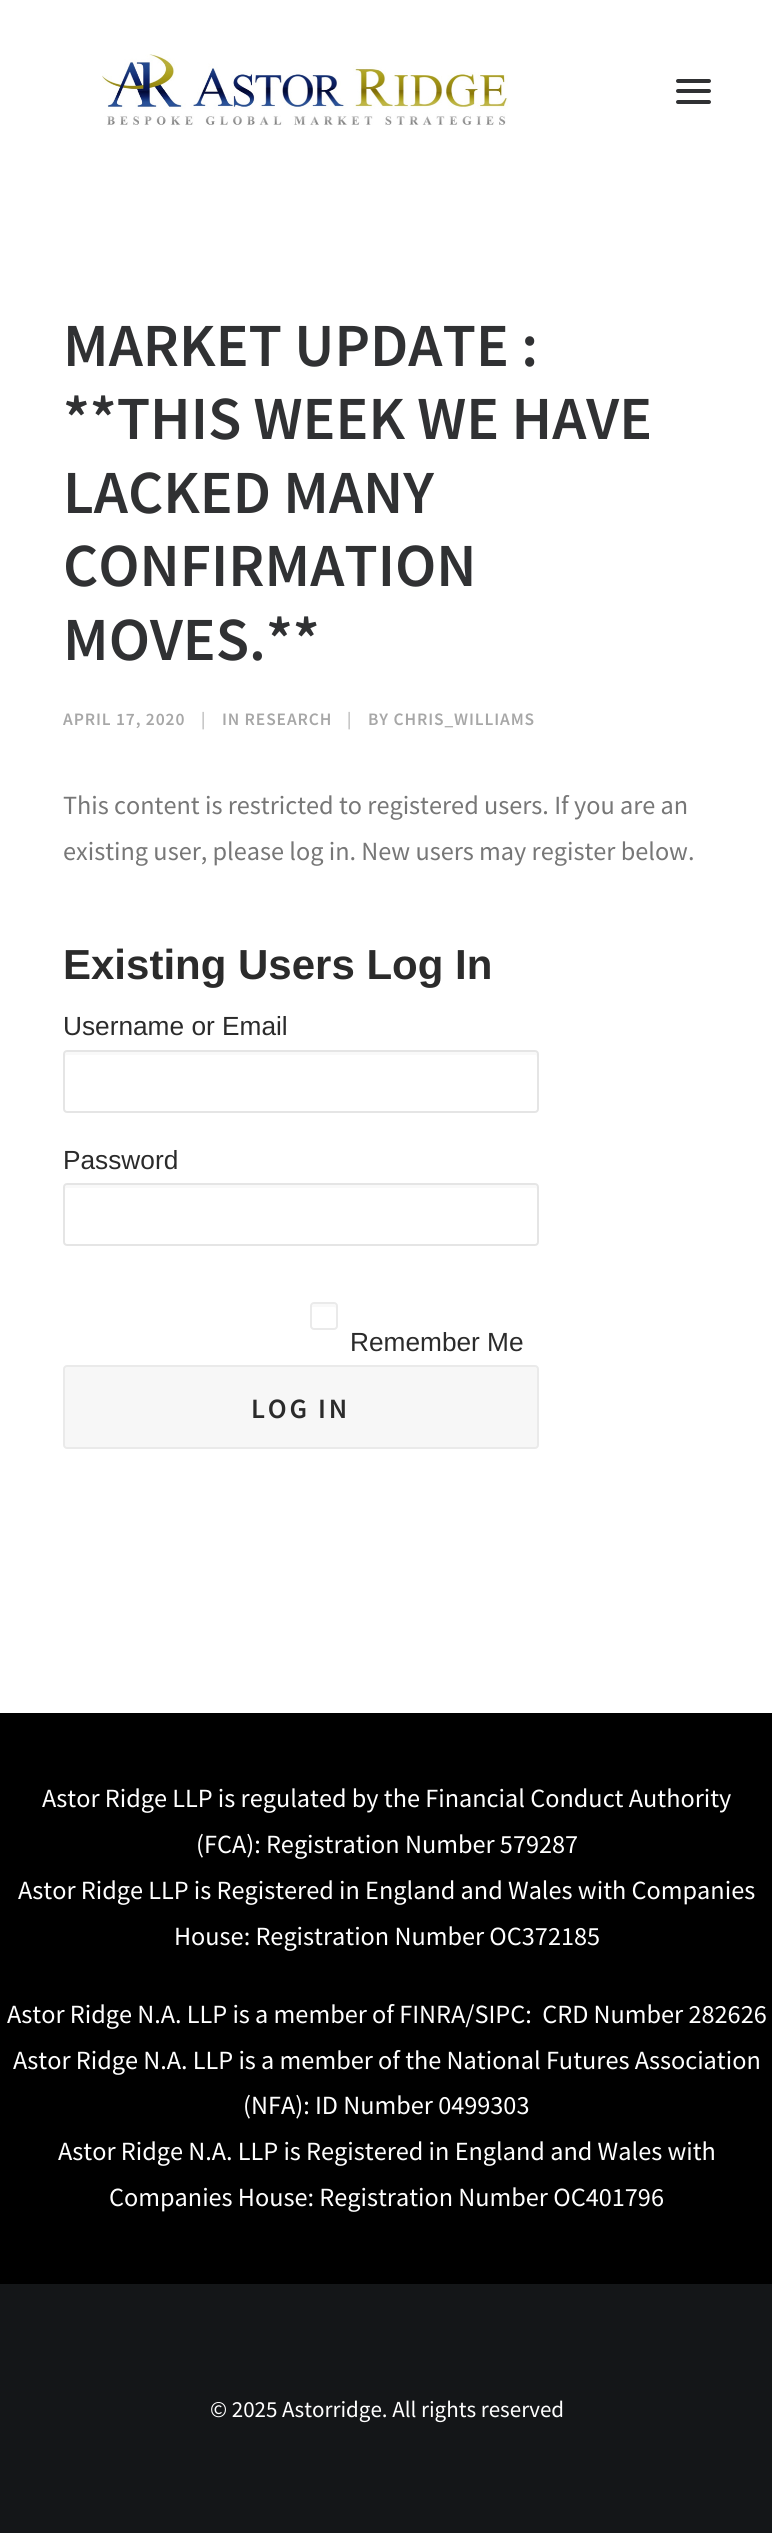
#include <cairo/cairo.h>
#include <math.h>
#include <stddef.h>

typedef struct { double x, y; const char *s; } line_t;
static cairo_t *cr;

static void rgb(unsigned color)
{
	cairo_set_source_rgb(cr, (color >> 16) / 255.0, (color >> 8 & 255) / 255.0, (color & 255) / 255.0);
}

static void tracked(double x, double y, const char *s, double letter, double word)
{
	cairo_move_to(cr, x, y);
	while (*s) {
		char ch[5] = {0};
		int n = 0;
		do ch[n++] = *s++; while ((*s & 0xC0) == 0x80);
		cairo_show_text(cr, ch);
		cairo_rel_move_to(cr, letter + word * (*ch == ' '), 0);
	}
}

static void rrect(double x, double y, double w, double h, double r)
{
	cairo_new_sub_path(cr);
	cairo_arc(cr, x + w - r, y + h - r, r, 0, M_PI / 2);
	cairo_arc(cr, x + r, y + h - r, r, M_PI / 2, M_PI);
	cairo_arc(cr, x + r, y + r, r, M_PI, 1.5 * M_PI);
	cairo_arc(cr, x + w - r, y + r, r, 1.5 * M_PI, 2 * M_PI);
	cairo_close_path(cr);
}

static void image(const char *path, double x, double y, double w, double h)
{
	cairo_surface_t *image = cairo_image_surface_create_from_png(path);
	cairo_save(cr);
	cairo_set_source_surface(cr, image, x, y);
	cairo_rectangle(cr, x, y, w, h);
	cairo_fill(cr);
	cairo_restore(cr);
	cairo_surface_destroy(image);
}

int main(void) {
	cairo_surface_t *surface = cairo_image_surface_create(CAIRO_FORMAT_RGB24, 772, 2533);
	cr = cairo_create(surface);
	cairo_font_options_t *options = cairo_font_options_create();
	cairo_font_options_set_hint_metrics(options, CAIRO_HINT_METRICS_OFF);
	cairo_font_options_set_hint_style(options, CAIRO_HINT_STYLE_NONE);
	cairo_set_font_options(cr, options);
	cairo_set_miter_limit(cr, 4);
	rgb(0xffffff);
	cairo_paint(cr);
	image("img/1.png", 102, 54, 406, 71);
	rgb(0x303133);
	rrect(676, 89, 35, 4, 2);
	cairo_fill(cr);
	rrect(676, 79, 35, 4, 2);
	cairo_fill(cr);
	rrect(676, 100, 35, 4, 2);
	cairo_fill(cr);
	rgb(0xf9f9f9);
	cairo_new_path(cr);
	cairo_move_to(cr, 66, 1055);
	cairo_line_to(cr, 536, 1055);
	cairo_line_to(cr, 537, 1057);
	cairo_line_to(cr, 537, 1054);
	cairo_curve_to(cr, 537, 1053, 536, 1052, 535, 1052);
	cairo_line_to(cr, 67, 1052);
	cairo_curve_to(cr, 66, 1052, 65, 1053, 65, 1054);
	cairo_line_to(cr, 65, 1057);
	cairo_close_path(cr);
	cairo_fill(cr);
	rrect(64, 1051, 474, 61, 3);
	rgb(0xe5e5e5);
	cairo_stroke(cr);
	rgb(0xf9f9f9);
	cairo_new_path(cr);
	cairo_move_to(cr, 66, 1188);
	cairo_line_to(cr, 536, 1188);
	cairo_line_to(cr, 537, 1190);
	cairo_line_to(cr, 537, 1187);
	cairo_curve_to(cr, 537, 1186, 536, 1185, 535, 1185);
	cairo_line_to(cr, 67, 1185);
	cairo_curve_to(cr, 66, 1185, 65, 1186, 65, 1187);
	cairo_line_to(cr, 65, 1190);
	cairo_close_path(cr);
	cairo_fill(cr);
	rrect(64, 1184, 474, 61, 3);
	rgb(0xe5e5e5);
	cairo_stroke(cr);
	rgb(0xf9f9f9);
	cairo_new_path(cr);
	cairo_move_to(cr, 313, 1307);
	cairo_line_to(cr, 334, 1307);
	cairo_curve_to(cr, 335, 1307, 336, 1308, 336, 1309);
	cairo_curve_to(cr, 336, 1304, 336, 1304, 330.5, 1304);
	cairo_line_to(cr, 317.5, 1304);
	cairo_curve_to(cr, 312, 1304, 312, 1304, 312, 1309);
	cairo_curve_to(cr, 312, 1308, 312, 1307, 313, 1307);
	cairo_close_path(cr);
	cairo_fill(cr);
	rrect(311, 1303, 26, 26, 3);
	rgb(0xeaeaea);
	cairo_stroke(cr);
	rgb(0xf7f7f7);
	rrect(64, 1366, 474, 82, 3);
	cairo_fill_preserve(cr);
	rgb(0xeaeaea);
	cairo_stroke(cr);
	rgb(0x000000);
	cairo_rectangle(cr, 0, 1713, 772, 571);
	cairo_fill(cr);
	rgb(0x141618);
	cairo_rectangle(cr, 0, 2284, 772, 249);
	cairo_fill(cr);
	cairo_select_font_face(cr, "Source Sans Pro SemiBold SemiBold", CAIRO_FONT_SLANT_NORMAL, CAIRO_FONT_WEIGHT_NORMAL);
	cairo_set_font_size(cr, 61.25);
	rgb(0x303133);
	{
		static const line_t items[] = {
			{63, 366, "MARKET UPDATE :"},
			{63, 439, "**THIS WEEK WE HAVE"},
			{63, 513, "LACKED MANY"},
			{63, 586, "CONFIRMATION"},
			{63, 660, "MOVES.**"},
		};
		for (size_t i = 0; i < sizeof items / sizeof *items; i++) {
			cairo_move_to(cr, items[i].x, items[i].y);
			cairo_show_text(cr, items[i].s);
		}
	}
	cairo_set_font_size(cr, 17.5);
	rgb(0xa7a7a7);
	tracked(63, 725, "APRIL 17, 2020", 0.9, 0);
	cairo_select_font_face(cr, "Source Sans Pro", CAIRO_FONT_SLANT_NORMAL, CAIRO_FONT_WEIGHT_NORMAL);
	tracked(201, 725, "|", 0.9, 0);
	cairo_select_font_face(cr, "Source Sans Pro SemiBold SemiBold", CAIRO_FONT_SLANT_NORMAL, CAIRO_FONT_WEIGHT_NORMAL);
	tracked(222, 725, "IN RESEARCH", 0.9, 0);
	cairo_select_font_face(cr, "Source Sans Pro", CAIRO_FONT_SLANT_NORMAL, CAIRO_FONT_WEIGHT_NORMAL);
	tracked(347, 725, "|", 0.9, 0);
	cairo_select_font_face(cr, "Source Sans Pro SemiBold SemiBold", CAIRO_FONT_SLANT_NORMAL, CAIRO_FONT_WEIGHT_NORMAL);
	tracked(368, 725, "BY CHRIS_WILLIAMS", 0.9, 0);
	cairo_select_font_face(cr, "Source Sans Pro", CAIRO_FONT_SLANT_NORMAL, CAIRO_FONT_WEIGHT_NORMAL);
	cairo_set_font_size(cr, 26.25);
	rgb(0x777777);
	cairo_move_to(cr, 63, 814);
	cairo_show_text(cr, "This content is restricted to registered users. If you are an");
	cairo_move_to(cr, 63, 860);
	cairo_show_text(cr, "existing user, please log in. New users may register below.");
	cairo_select_font_face(cr, "Liberation Sans", CAIRO_FONT_SLANT_NORMAL, CAIRO_FONT_WEIGHT_BOLD);
	cairo_set_font_size(cr, 42);
	rgb(0x2b2b2b);
	cairo_move_to(cr, 63, 979);
	cairo_show_text(cr, "Existing Users Log In");
	cairo_select_font_face(cr, "Liberation Sans", CAIRO_FONT_SLANT_NORMAL, CAIRO_FONT_WEIGHT_NORMAL);
	cairo_set_font_size(cr, 26.25);
	{
		static const line_t items[] = {
			{63, 1035, "Username or Email"},
			{63, 1169, "Password"},
			{350, 1351, "Remember Me"},
		};
		for (size_t i = 0; i < sizeof items / sizeof *items; i++) {
			cairo_move_to(cr, items[i].x, items[i].y);
			cairo_show_text(cr, items[i].s);
		}
	}
	cairo_select_font_face(cr, "Source Sans Pro SemiBold SemiBold", CAIRO_FONT_SLANT_NORMAL, CAIRO_FONT_WEIGHT_NORMAL);
	cairo_set_font_size(cr, 28);
	tracked(251, 1418, "LOG IN", 2.75, 0);
	cairo_select_font_face(cr, "Source Sans Pro", CAIRO_FONT_SLANT_NORMAL, CAIRO_FONT_WEIGHT_NORMAL);
	cairo_set_font_size(cr, 26.25);
	rgb(0xffffff);
	{
		static const line_t items[] = {
			{42, 1807, "Astor Ridge LLP is regulated by the Financial Conduct Authority"},
			{196, 1853, "(FCA): Registration Number 579287"},
			{18, 1899, "Astor Ridge LLP is Registered in England and Wales with Companies"},
			{174, 1945, "House: Registration Number OC372185"},
			{7, 2023, "Astor Ridge N.A. LLP is a member of FINRA/SIPC:  CRD Number 282626"},
			{13, 2069, "Astor Ridge N.A. LLP is a member of the National Futures Association"},
			{243, 2114, "(NFA): ID Number 0499303"},
			{58, 2160, "Astor Ridge N.A. LLP is Registered in England and Wales with"},
			{109, 2206, "Companies House: Registration Number OC401796"},
		};
		for (size_t i = 0; i < sizeof items / sizeof *items; i++) {
			cairo_move_to(cr, items[i].x, items[i].y);
			cairo_show_text(cr, items[i].s);
		}
	}
	cairo_set_font_size(cr, 23);
	cairo_move_to(cr, 210, 2417);
	cairo_show_text(cr, "© 2025 Astorridge. All rights reserved");
	cairo_surface_write_to_png(surface, "page.png");
	cairo_font_options_destroy(options);
	cairo_destroy(cr);
	cairo_surface_destroy(surface);
	return 0;
}
